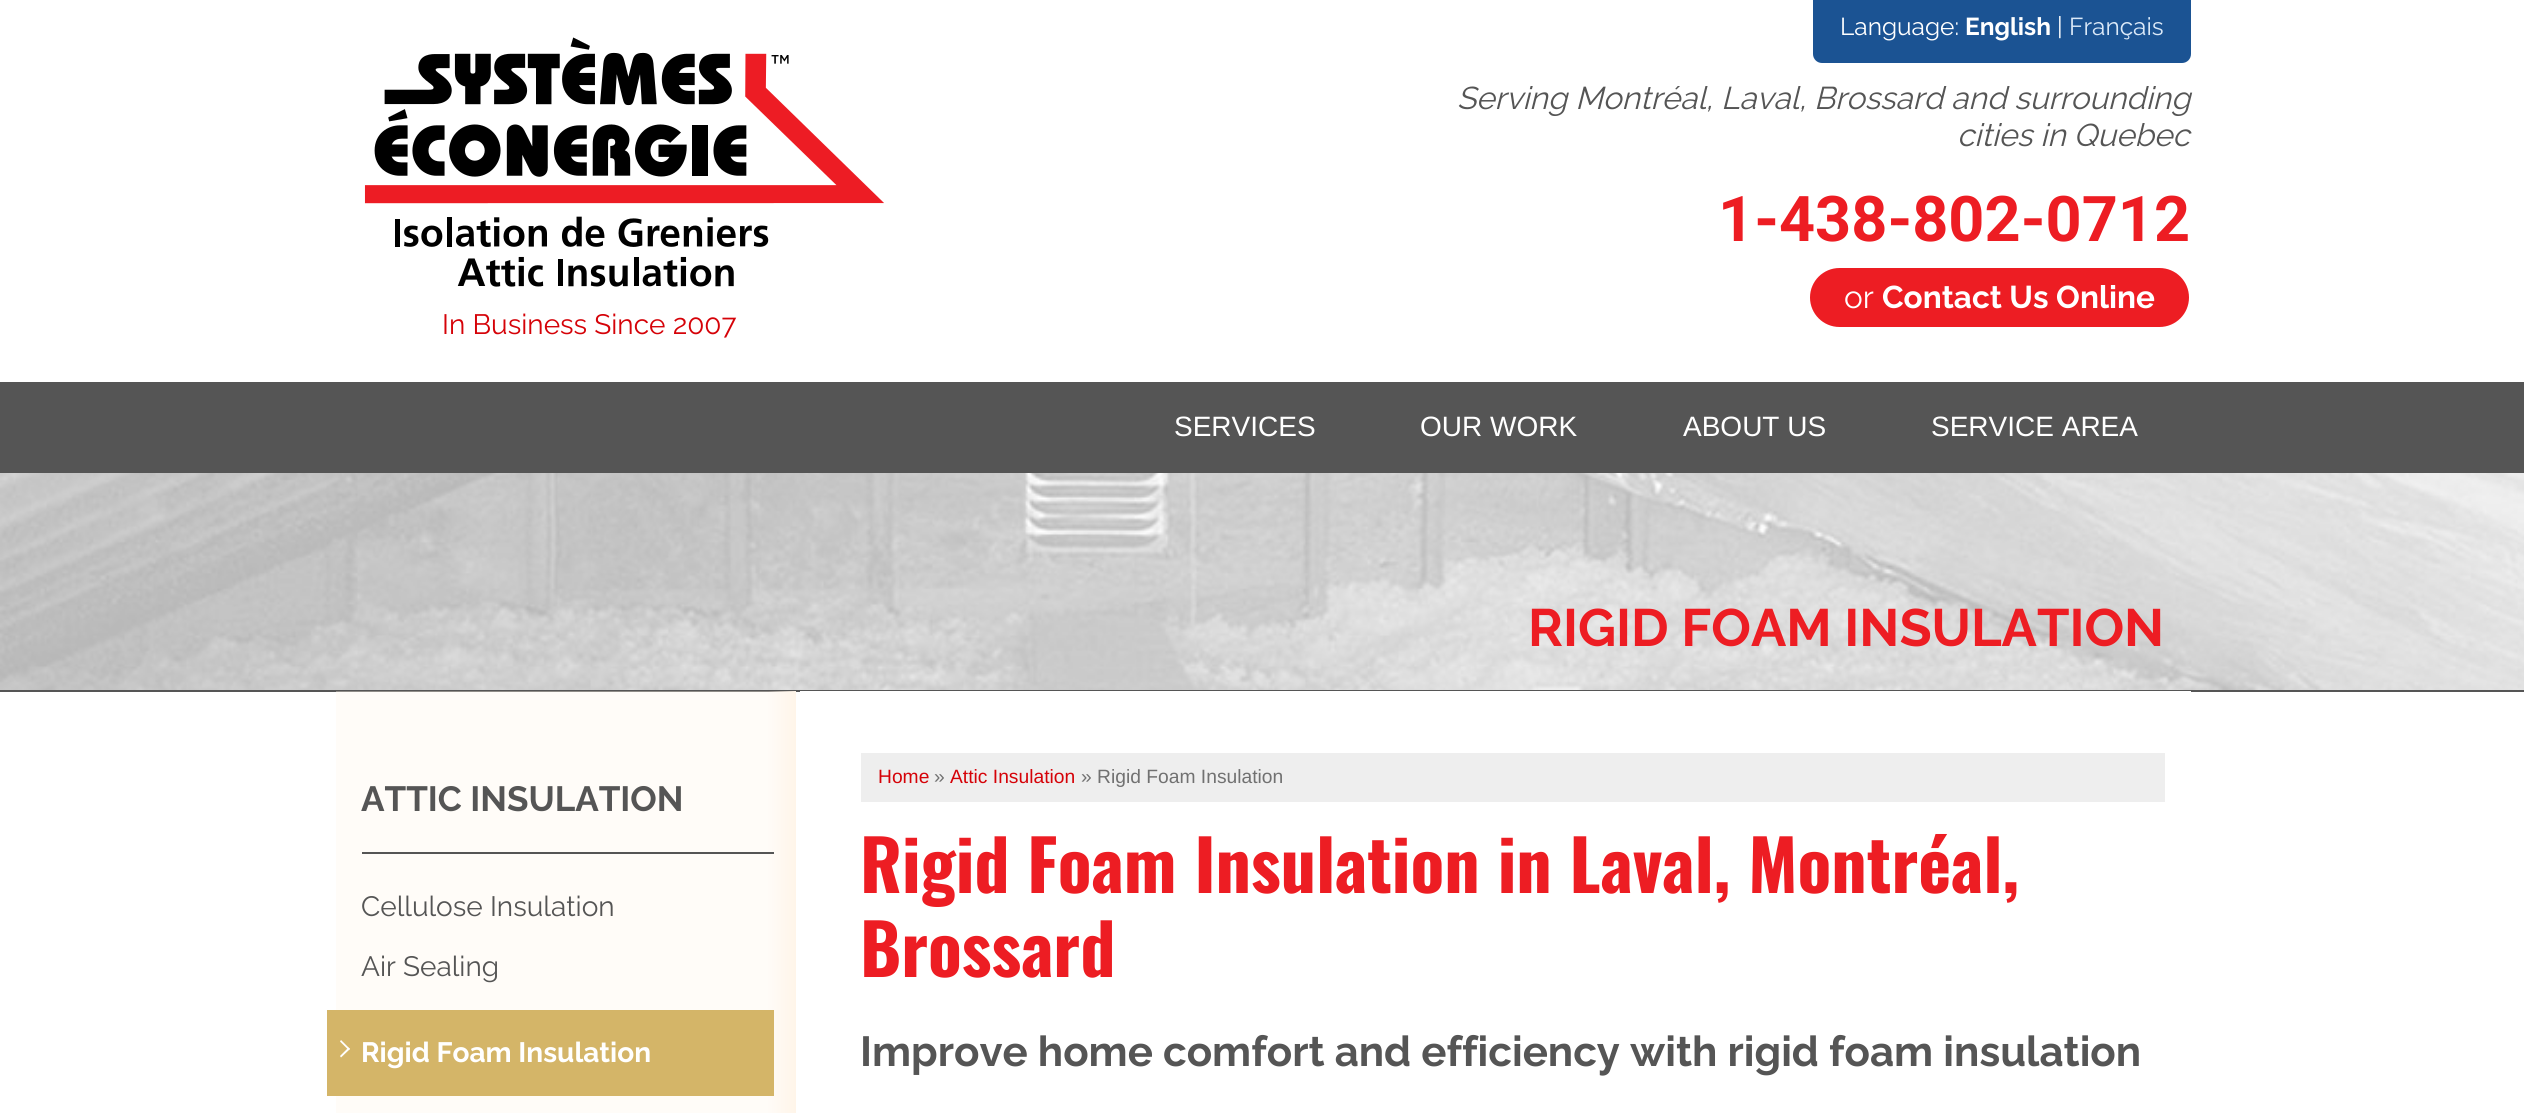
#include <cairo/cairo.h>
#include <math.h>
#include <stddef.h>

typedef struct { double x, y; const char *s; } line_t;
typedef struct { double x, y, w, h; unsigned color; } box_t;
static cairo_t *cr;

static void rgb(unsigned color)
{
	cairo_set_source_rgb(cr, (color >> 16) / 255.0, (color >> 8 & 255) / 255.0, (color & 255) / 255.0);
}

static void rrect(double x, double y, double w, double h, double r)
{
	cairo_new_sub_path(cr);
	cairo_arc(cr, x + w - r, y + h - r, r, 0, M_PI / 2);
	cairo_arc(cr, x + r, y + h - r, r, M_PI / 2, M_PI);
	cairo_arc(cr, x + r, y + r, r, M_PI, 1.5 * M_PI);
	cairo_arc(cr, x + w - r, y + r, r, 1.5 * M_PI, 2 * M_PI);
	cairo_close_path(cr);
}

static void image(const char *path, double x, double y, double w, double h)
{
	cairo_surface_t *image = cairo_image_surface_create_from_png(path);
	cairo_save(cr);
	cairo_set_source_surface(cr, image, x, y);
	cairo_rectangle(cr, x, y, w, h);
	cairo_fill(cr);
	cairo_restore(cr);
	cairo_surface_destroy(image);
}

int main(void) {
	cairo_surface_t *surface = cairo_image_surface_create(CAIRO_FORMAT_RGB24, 2524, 1113);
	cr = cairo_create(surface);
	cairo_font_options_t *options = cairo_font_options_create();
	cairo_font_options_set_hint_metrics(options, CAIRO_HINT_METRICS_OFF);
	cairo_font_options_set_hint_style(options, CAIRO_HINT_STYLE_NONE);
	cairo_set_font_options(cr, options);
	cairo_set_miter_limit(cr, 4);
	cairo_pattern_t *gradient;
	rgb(0xffffff);
	cairo_paint(cr);
	rgb(0x1b5393);
	cairo_new_path(cr);
	cairo_move_to(cr, 1813, 0);
	cairo_line_to(cr, 2191, 0);
	cairo_line_to(cr, 2191, 54);
	cairo_curve_to(cr, 2191, 59, 2187, 63, 2182, 63);
	cairo_line_to(cr, 1822, 63);
	cairo_curve_to(cr, 1817, 63, 1813, 59, 1813, 54);
	cairo_close_path(cr);
	cairo_fill(cr);
	rgb(0xed1d23);
	rrect(1810, 268, 379, 59, 29.5);
	cairo_fill(cr);
	image("img/1.png", 364, 37, 520, 250);
	rgb(0x555555);
	cairo_rectangle(cr, 0, 382, 2524, 91);
	cairo_fill(cr);
	image("img/2.png", 0, 473, 2524, 217);
	cairo_rectangle(cr, 0, 690, 2524, 2);
	cairo_fill(cr);
	gradient = cairo_pattern_create_linear(796, 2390, 336, 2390);
	cairo_pattern_add_color_stop_rgba(gradient, 0, 1, 0.961, 0.914, 1);
	cairo_pattern_add_color_stop_rgba(gradient, 0.06, 1, 0.961, 0.914, 0.35);
	cairo_set_source(cr, gradient);
	cairo_pattern_destroy(gradient);
	cairo_rectangle(cr, 336, 691, 460, 422);
	cairo_fill(cr);
	{
		static const box_t items[] = {
			{800, 691, 1391, 1, 0xffffff},
			{861, 753, 1304, 49, 0xeeeeee},
			{362, 852, 412, 2, 0x555555},
		};
		for (size_t i = 0; i < sizeof items / sizeof *items; i++) {
			rgb(items[i].color);
			cairo_rectangle(cr, items[i].x, items[i].y, items[i].w, items[i].h);
			cairo_fill(cr);
		}
	}
	rgb(0xd4b568);
	cairo_new_path(cr);
	cairo_move_to(cr, 327, 1010);
	cairo_line_to(cr, 327, 1096);
	cairo_line_to(cr, 739, 1096);
	cairo_line_to(cr, 362, 1096);
	cairo_line_to(cr, 362, 1010);
	cairo_close_path(cr);
	cairo_fill(cr);
	cairo_rectangle(cr, 362, 1010, 412, 86);
	cairo_fill(cr);
	rgb(0xffffff);
	cairo_new_path(cr);
	cairo_move_to(cr, 341, 1040);
	cairo_line_to(cr, 350, 1049);
	cairo_line_to(cr, 348.5, 1050);
	cairo_line_to(cr, 340, 1041.5);
	cairo_close_path(cr);
	cairo_fill(cr);
	cairo_new_path(cr);
	cairo_move_to(cr, 348.5, 1047.5);
	cairo_line_to(cr, 350, 1049);
	cairo_line_to(cr, 341, 1057.5);
	cairo_line_to(cr, 340, 1056);
	cairo_close_path(cr);
	cairo_fill(cr);
	cairo_select_font_face(cr, "Raleway", CAIRO_FONT_SLANT_NORMAL, CAIRO_FONT_WEIGHT_NORMAL);
	cairo_set_font_size(cr, 24.5);
	cairo_move_to(cr, 1840, 35);
	cairo_show_text(cr, "Language:");
	cairo_select_font_face(cr, "Raleway", CAIRO_FONT_SLANT_NORMAL, CAIRO_FONT_WEIGHT_BOLD);
	cairo_move_to(cr, 1965, 35);
	cairo_show_text(cr, "English");
	cairo_select_font_face(cr, "Raleway", CAIRO_FONT_SLANT_NORMAL, CAIRO_FONT_WEIGHT_NORMAL);
	cairo_move_to(cr, 2057, 35);
	cairo_show_text(cr, "|");
	rgb(0xdbe9f8);
	cairo_move_to(cr, 2069, 35);
	cairo_show_text(cr, "Français");
	cairo_select_font_face(cr, "Raleway", CAIRO_FONT_SLANT_ITALIC, CAIRO_FONT_WEIGHT_NORMAL);
	cairo_set_font_size(cr, 31.5);
	rgb(0x555555);
	cairo_move_to(cr, 1457, 109);
	cairo_show_text(cr, "Serving Montréal, Laval, Brossard and surrounding");
	cairo_move_to(cr, 1957, 146);
	cairo_show_text(cr, "cities in Quebec");
	cairo_select_font_face(cr, "Roboto", CAIRO_FONT_SLANT_NORMAL, CAIRO_FONT_WEIGHT_BOLD);
	cairo_set_font_size(cr, 63);
	rgb(0xed1d23);
	cairo_move_to(cr, 1718, 241);
	cairo_show_text(cr, "1-438-802-0712");
	cairo_select_font_face(cr, "Raleway", CAIRO_FONT_SLANT_NORMAL, CAIRO_FONT_WEIGHT_NORMAL);
	cairo_set_font_size(cr, 31.5);
	rgb(0xffffff);
	cairo_move_to(cr, 1844, 308);
	cairo_show_text(cr, "or");
	cairo_select_font_face(cr, "Raleway", CAIRO_FONT_SLANT_NORMAL, CAIRO_FONT_WEIGHT_BOLD);
	cairo_move_to(cr, 1882, 308);
	cairo_show_text(cr, "Contact Us Online");
	cairo_select_font_face(cr, "Raleway", CAIRO_FONT_SLANT_NORMAL, CAIRO_FONT_WEIGHT_NORMAL);
	cairo_set_font_size(cr, 28);
	rgb(0xd50208);
	cairo_move_to(cr, 442, 334);
	cairo_show_text(cr, "In Business Since 2007");
	cairo_select_font_face(cr, "Liberation Sans", CAIRO_FONT_SLANT_NORMAL, CAIRO_FONT_WEIGHT_NORMAL);
	rgb(0xffffff);
	{
		static const line_t items[] = {
			{1174, 436, "SERVICES"},
			{1420, 436, "OUR WORK"},
			{1683, 436, "ABOUT US"},
			{1931, 436, "SERVICE AREA"},
		};
		for (size_t i = 0; i < sizeof items / sizeof *items; i++) {
			cairo_move_to(cr, items[i].x, items[i].y);
			cairo_show_text(cr, items[i].s);
		}
	}
	cairo_select_font_face(cr, "Raleway", CAIRO_FONT_SLANT_NORMAL, CAIRO_FONT_WEIGHT_BOLD);
	cairo_set_font_size(cr, 52.5);
	rgb(0xed1d23);
	cairo_move_to(cr, 1528, 646);
	cairo_show_text(cr, "RIGID FOAM INSULATION");
	cairo_select_font_face(cr, "Liberation Sans", CAIRO_FONT_SLANT_NORMAL, CAIRO_FONT_WEIGHT_NORMAL);
	cairo_set_font_size(cr, 19.25);
	rgb(0xd50208);
	cairo_move_to(cr, 878, 783);
	cairo_show_text(cr, "Home");
	rgb(0x717171);
	cairo_move_to(cr, 934, 783);
	cairo_show_text(cr, "»");
	rgb(0xd50208);
	cairo_move_to(cr, 950, 783);
	cairo_show_text(cr, "Attic Insulation");
	rgb(0x717171);
	cairo_move_to(cr, 1081, 783);
	cairo_show_text(cr, "» Rigid Foam Insulation");
	cairo_select_font_face(cr, "Oswald", CAIRO_FONT_SLANT_NORMAL, CAIRO_FONT_WEIGHT_BOLD);
	cairo_set_font_size(cr, 70);
	rgb(0xed1d23);
	cairo_move_to(cr, 860, 893);
	cairo_show_text(cr, "Rigid Foam Insulation in Laval, Montréal,");
	cairo_move_to(cr, 860, 977);
	cairo_show_text(cr, "Brossard");
	cairo_select_font_face(cr, "Raleway", CAIRO_FONT_SLANT_NORMAL, CAIRO_FONT_WEIGHT_BOLD);
	cairo_set_font_size(cr, 42);
	rgb(0x555555);
	cairo_move_to(cr, 860, 1066);
	cairo_show_text(cr, "Improve home comfort and efficiency with rigid foam insulation");
	cairo_set_font_size(cr, 35);
	cairo_move_to(cr, 361, 811);
	cairo_show_text(cr, "ATTIC INSULATION");
	cairo_select_font_face(cr, "Raleway", CAIRO_FONT_SLANT_NORMAL, CAIRO_FONT_WEIGHT_NORMAL);
	cairo_set_font_size(cr, 28);
	cairo_move_to(cr, 361, 916);
	cairo_show_text(cr, "Cellulose Insulation");
	cairo_move_to(cr, 361, 976);
	cairo_show_text(cr, "Air Sealing");
	cairo_select_font_face(cr, "Raleway", CAIRO_FONT_SLANT_NORMAL, CAIRO_FONT_WEIGHT_BOLD);
	rgb(0xffffff);
	cairo_move_to(cr, 361, 1062);
	cairo_show_text(cr, "Rigid Foam Insulation");
	cairo_surface_write_to_png(surface, "page.png");
	cairo_font_options_destroy(options);
	cairo_destroy(cr);
	cairo_surface_destroy(surface);
	return 0;
}
